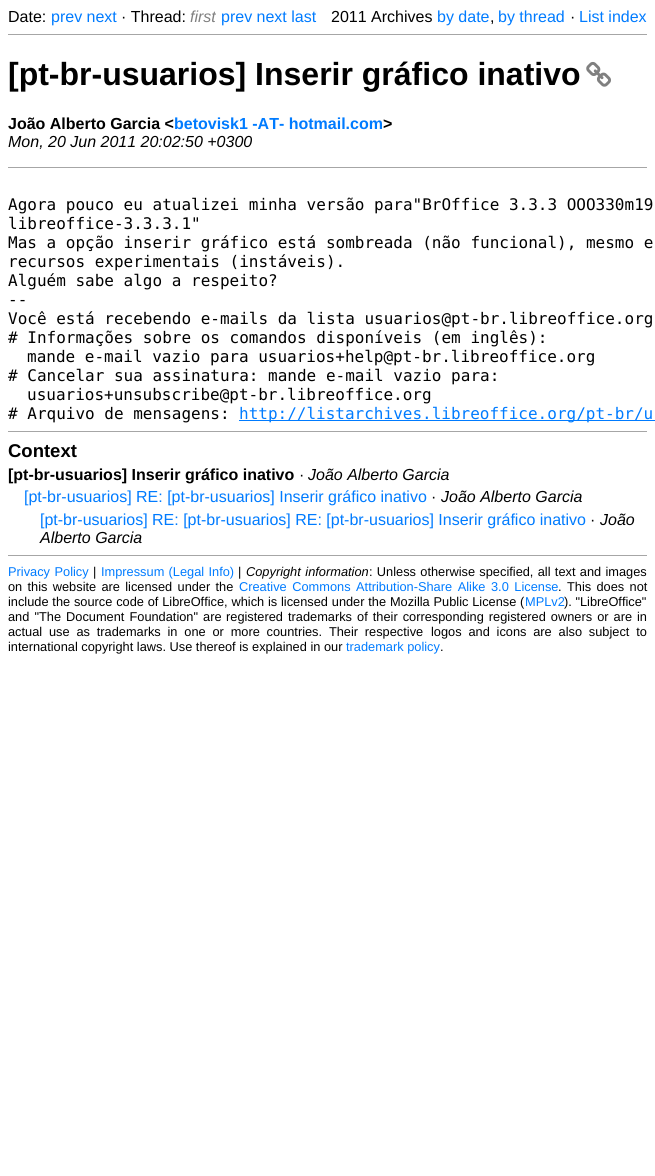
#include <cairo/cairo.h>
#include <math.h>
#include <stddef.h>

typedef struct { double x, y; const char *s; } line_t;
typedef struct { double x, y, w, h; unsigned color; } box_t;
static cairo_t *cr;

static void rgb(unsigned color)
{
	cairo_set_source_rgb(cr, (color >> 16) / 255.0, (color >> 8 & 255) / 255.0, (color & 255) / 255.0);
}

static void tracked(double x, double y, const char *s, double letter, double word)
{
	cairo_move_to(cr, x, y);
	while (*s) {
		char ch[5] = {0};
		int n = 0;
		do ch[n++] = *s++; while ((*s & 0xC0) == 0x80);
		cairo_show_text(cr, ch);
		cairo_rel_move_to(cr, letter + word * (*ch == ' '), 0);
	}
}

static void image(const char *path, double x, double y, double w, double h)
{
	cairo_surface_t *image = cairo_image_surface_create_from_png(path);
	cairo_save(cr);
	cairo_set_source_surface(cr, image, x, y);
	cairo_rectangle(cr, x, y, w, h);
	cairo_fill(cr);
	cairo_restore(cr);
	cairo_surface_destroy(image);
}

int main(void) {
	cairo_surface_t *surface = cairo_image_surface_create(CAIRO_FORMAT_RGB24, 655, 1176);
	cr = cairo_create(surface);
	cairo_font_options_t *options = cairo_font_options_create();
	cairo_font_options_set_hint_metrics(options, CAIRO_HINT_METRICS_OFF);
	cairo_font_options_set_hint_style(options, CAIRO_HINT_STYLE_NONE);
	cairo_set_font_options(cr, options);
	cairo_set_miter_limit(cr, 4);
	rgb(0xffffff);
	cairo_paint(cr);
	rgb(0xa6a6a6);
	cairo_rectangle(cr, 8, 34, 639, 1);
	cairo_fill(cr);
	image("img/1.png", 586, 61, 25, 26);
	{
		static const box_t items[] = {
			{8, 167, 639, 1, 0xa6a6a6},
			{239, 420, 416, 1, 0x007bff},
			{8, 431, 639, 1, 0xa6a6a6},
			{8, 555, 639, 1, 0xa6a6a6},
		};
		for (size_t i = 0; i < sizeof items / sizeof *items; i++) {
			rgb(items[i].color);
			cairo_rectangle(cr, items[i].x, items[i].y, items[i].w, items[i].h);
			cairo_fill(cr);
		}
	}
	cairo_select_font_face(cr, "Liberation Sans", CAIRO_FONT_SLANT_NORMAL, CAIRO_FONT_WEIGHT_NORMAL);
	cairo_set_font_size(cr, 16);
	rgb(0x000000);
	cairo_move_to(cr, 8, 22);
	cairo_show_text(cr, "Date:");
	rgb(0x007bff);
	cairo_move_to(cr, 51, 22);
	cairo_show_text(cr, "prev next");
	rgb(0x000000);
	cairo_move_to(cr, 121, 22);
	cairo_show_text(cr, "· Thread:");
	cairo_select_font_face(cr, "Liberation Sans", CAIRO_FONT_SLANT_ITALIC, CAIRO_FONT_WEIGHT_NORMAL);
	rgb(0x808080);
	cairo_move_to(cr, 190, 22);
	cairo_show_text(cr, "first");
	cairo_select_font_face(cr, "Liberation Sans", CAIRO_FONT_SLANT_NORMAL, CAIRO_FONT_WEIGHT_NORMAL);
	rgb(0x007bff);
	cairo_move_to(cr, 221, 22);
	cairo_show_text(cr, "prev next last");
	rgb(0x000000);
	cairo_move_to(cr, 331, 22);
	cairo_show_text(cr, "2011 Archives");
	rgb(0x007bff);
	cairo_move_to(cr, 437, 22);
	cairo_show_text(cr, "by date");
	cairo_move_to(cr, 498, 22);
	cairo_show_text(cr, "by thread");
	rgb(0x000000);
	cairo_move_to(cr, 570, 22);
	cairo_show_text(cr, "·");
	rgb(0x007bff);
	cairo_move_to(cr, 579, 22);
	cairo_show_text(cr, "List index");
	rgb(0x000000);
	cairo_move_to(cr, 490, 22);
	cairo_show_text(cr, ",");
	cairo_select_font_face(cr, "Liberation Sans", CAIRO_FONT_SLANT_NORMAL, CAIRO_FONT_WEIGHT_BOLD);
	cairo_set_font_size(cr, 32);
	cairo_move_to(cr, 8, 85);
	cairo_show_text(cr, "[pt-br-usuarios] Inserir gráfico inativo");
	cairo_set_font_size(cr, 16);
	cairo_move_to(cr, 8, 129);
	cairo_show_text(cr, "João Alberto Garcia <");
	rgb(0x007bff);
	cairo_move_to(cr, 174, 129);
	cairo_show_text(cr, "betovisk1 -AT- hotmail.com");
	rgb(0x000000);
	cairo_move_to(cr, 383, 129);
	cairo_show_text(cr, ">");
	cairo_select_font_face(cr, "Liberation Sans", CAIRO_FONT_SLANT_ITALIC, CAIRO_FONT_WEIGHT_NORMAL);
	cairo_move_to(cr, 8, 147);
	cairo_show_text(cr, "Mon, 20 Jun 2011 20:02:50 +0300");
	cairo_select_font_face(cr, "DejaVu Sans Mono", CAIRO_FONT_SLANT_NORMAL, CAIRO_FONT_WEIGHT_NORMAL);
	{
		static const line_t items[] = {
			{8, 210, "Agora pouco eu atualizei minha versão para\"BrOffice 3.3.3 OOO330m19"},
			{8, 229, "libreoffice-3.3.3.1\""},
			{8, 248, "Mas a opção inserir gráfico está sombreada (não funcional), mesmo e"},
			{8, 267, "recursos experimentais (instáveis)."},
			{8, 286, "Alguém sabe algo a respeito?"},
			{8, 305, "--"},
			{8, 324, "Você está recebendo e-mails da lista usuarios@pt-br.libreoffice.org"},
			{8, 343, "# Informações sobre os comandos disponíveis (em inglês):"},
			{27, 362, "mande e-mail vazio para usuarios+help@pt-br.libreoffice.org"},
			{8, 381, "# Cancelar sua assinatura: mande e-mail vazio para:"},
			{27, 400, "usuarios+unsubscribe@pt-br.libreoffice.org"},
			{8, 419, "# Arquivo de mensagens:"},
		};
		for (size_t i = 0; i < sizeof items / sizeof *items; i++) {
			cairo_move_to(cr, items[i].x, items[i].y);
			cairo_show_text(cr, items[i].s);
		}
	}
	rgb(0x007bff);
	cairo_move_to(cr, 239, 419);
	cairo_show_text(cr, "http://listarchives.libreoffice.org/pt-br/u");
	cairo_select_font_face(cr, "Liberation Sans", CAIRO_FONT_SLANT_NORMAL, CAIRO_FONT_WEIGHT_BOLD);
	cairo_set_font_size(cr, 18.5);
	rgb(0x000000);
	cairo_move_to(cr, 8, 457);
	cairo_show_text(cr, "Context");
	cairo_set_font_size(cr, 16);
	cairo_move_to(cr, 8, 480);
	cairo_show_text(cr, "[pt-br-usuarios] Inserir gráfico inativo");
	cairo_select_font_face(cr, "Liberation Sans", CAIRO_FONT_SLANT_NORMAL, CAIRO_FONT_WEIGHT_NORMAL);
	cairo_move_to(cr, 299, 480);
	cairo_show_text(cr, "·");
	cairo_select_font_face(cr, "Liberation Sans", CAIRO_FONT_SLANT_ITALIC, CAIRO_FONT_WEIGHT_NORMAL);
	cairo_move_to(cr, 308, 480);
	cairo_show_text(cr, "João Alberto Garcia");
	cairo_select_font_face(cr, "Liberation Sans", CAIRO_FONT_SLANT_NORMAL, CAIRO_FONT_WEIGHT_NORMAL);
	rgb(0x007bff);
	cairo_move_to(cr, 24, 502);
	cairo_show_text(cr, "[pt-br-usuarios] RE: [pt-br-usuarios] Inserir gráfico inativo");
	rgb(0x000000);
	cairo_move_to(cr, 431, 502);
	cairo_show_text(cr, "·");
	cairo_select_font_face(cr, "Liberation Sans", CAIRO_FONT_SLANT_ITALIC, CAIRO_FONT_WEIGHT_NORMAL);
	cairo_move_to(cr, 441, 502);
	cairo_show_text(cr, "João Alberto Garcia");
	cairo_select_font_face(cr, "Liberation Sans", CAIRO_FONT_SLANT_NORMAL, CAIRO_FONT_WEIGHT_NORMAL);
	rgb(0x007bff);
	cairo_move_to(cr, 40, 525);
	cairo_show_text(cr, "[pt-br-usuarios] RE: [pt-br-usuarios] RE: [pt-br-usuarios] Inserir gráfico inativo");
	rgb(0x000000);
	cairo_move_to(cr, 590, 525);
	cairo_show_text(cr, "·");
	cairo_select_font_face(cr, "Liberation Sans", CAIRO_FONT_SLANT_ITALIC, CAIRO_FONT_WEIGHT_NORMAL);
	cairo_move_to(cr, 600, 525);
	cairo_show_text(cr, "João");
	cairo_move_to(cr, 40, 543);
	cairo_show_text(cr, "Alberto Garcia");
	cairo_select_font_face(cr, "Liberation Sans", CAIRO_FONT_SLANT_NORMAL, CAIRO_FONT_WEIGHT_NORMAL);
	cairo_set_font_size(cr, 12.8);
	rgb(0x007bff);
	tracked(8, 576, "Privacy Policy", 0, 1);
	rgb(0x000000);
	cairo_move_to(cr, 93, 576);
	cairo_show_text(cr, "|");
	rgb(0x007bff);
	tracked(101, 576, "Impressum (Legal Info)", 0, 0.75);
	rgb(0x000000);
	cairo_move_to(cr, 238, 576);
	cairo_show_text(cr, "|");
	cairo_select_font_face(cr, "Liberation Sans", CAIRO_FONT_SLANT_ITALIC, CAIRO_FONT_WEIGHT_NORMAL);
	tracked(246, 576, "Copyright information", 0, 1);
	cairo_select_font_face(cr, "Liberation Sans", CAIRO_FONT_SLANT_NORMAL, CAIRO_FONT_WEIGHT_NORMAL);
	tracked(369, 576, ": Unless otherwise specified, all text and images", 0, 0.75);
	tracked(8, 591, "on this website are licensed under the", 0, 1.75);
	rgb(0x007bff);
	tracked(239, 591, "Creative Commons Attribution-Share Alike 3.0 License", 0, 2);
	rgb(0x000000);
	cairo_move_to(cr, 558, 591);
	cairo_show_text(cr, ".");
	tracked(567, 591, "This does not", 0, 1.75);
	tracked(8, 606, "include the source code of LibreOffice, which is licensed under the Mozilla Public License (", 0, 0.25);
	rgb(0x007bff);
	cairo_move_to(cr, 525, 606);
	cairo_show_text(cr, "MPLv2");
	rgb(0x000000);
	cairo_move_to(cr, 564, 606);
	cairo_show_text(cr, "). \"LibreOffice\"");
	tracked(8, 621, "and \"The Document Foundation\" are", 0, 1.5);
	tracked(226, 621, "registered trademarks of their corresponding registered owners or are", 0, 1.5);
	cairo_move_to(cr, 637, 621);
	cairo_show_text(cr, "in");
	tracked(8, 636, "actual use as trademarks in one or more countries. Their respective", 0, 3.25);
	tracked(431, 636, "logos and icons are also subject to", 0, 3.25);
	cairo_move_to(cr, 8, 651);
	cairo_show_text(cr, "international copyright laws. Use thereof is explained in our");
	rgb(0x007bff);
	cairo_move_to(cr, 346, 651);
	cairo_show_text(cr, "trademark policy");
	rgb(0x000000);
	cairo_move_to(cr, 440, 651);
	cairo_show_text(cr, ".");
	cairo_surface_write_to_png(surface, "page.png");
	cairo_font_options_destroy(options);
	cairo_destroy(cr);
	cairo_surface_destroy(surface);
	return 0;
}
